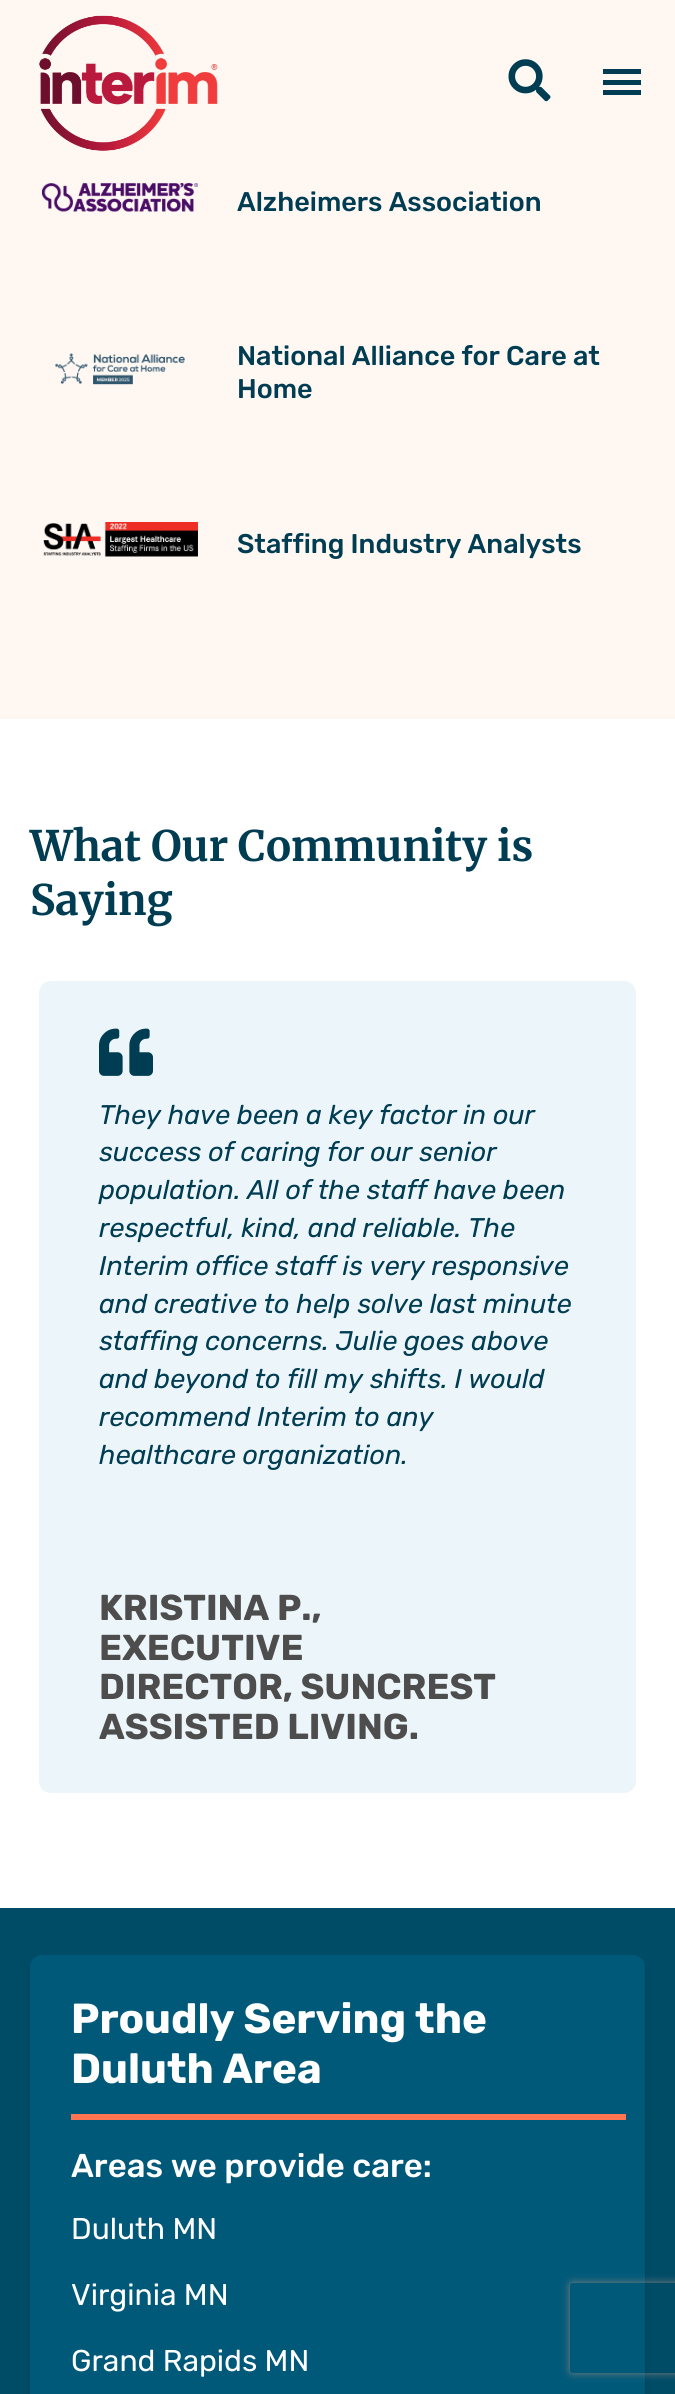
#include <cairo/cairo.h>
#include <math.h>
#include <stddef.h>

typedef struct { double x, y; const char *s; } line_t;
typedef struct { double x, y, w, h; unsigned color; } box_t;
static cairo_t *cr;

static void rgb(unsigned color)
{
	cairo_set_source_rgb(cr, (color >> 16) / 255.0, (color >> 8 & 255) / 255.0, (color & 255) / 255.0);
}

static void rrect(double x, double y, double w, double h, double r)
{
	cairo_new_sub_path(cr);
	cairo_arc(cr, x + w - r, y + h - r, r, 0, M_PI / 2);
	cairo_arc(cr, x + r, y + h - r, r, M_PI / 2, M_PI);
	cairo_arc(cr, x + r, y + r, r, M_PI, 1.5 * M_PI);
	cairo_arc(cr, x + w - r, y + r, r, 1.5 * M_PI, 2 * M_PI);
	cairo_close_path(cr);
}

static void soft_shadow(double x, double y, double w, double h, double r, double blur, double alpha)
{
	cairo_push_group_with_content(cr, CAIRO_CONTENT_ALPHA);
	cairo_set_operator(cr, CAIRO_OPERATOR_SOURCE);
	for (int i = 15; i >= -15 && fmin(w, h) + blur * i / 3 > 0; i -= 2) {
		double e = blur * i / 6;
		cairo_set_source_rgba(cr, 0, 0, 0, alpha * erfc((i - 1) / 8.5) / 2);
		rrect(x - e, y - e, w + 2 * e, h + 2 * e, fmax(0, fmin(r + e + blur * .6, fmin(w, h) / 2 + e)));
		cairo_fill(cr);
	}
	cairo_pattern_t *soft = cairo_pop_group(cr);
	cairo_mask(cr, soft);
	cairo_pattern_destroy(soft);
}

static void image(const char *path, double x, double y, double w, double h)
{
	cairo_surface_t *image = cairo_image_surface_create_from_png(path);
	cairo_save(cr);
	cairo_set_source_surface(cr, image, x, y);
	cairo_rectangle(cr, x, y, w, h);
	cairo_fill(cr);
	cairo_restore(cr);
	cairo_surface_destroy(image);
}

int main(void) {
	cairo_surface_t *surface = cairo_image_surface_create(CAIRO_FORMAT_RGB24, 675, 2394);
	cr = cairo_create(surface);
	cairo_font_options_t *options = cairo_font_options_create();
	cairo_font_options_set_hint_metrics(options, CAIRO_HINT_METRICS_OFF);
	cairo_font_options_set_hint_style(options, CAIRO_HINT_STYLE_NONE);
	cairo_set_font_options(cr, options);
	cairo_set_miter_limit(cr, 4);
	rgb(0xffffff);
	cairo_paint(cr);
	rgb(0xfef7f2);
	cairo_rectangle(cr, 0, 0, 675, 719);
	cairo_fill(cr);
	image("img/1.png", 39, 15, 179, 136);
	image("img/2.png", 508, 59, 43, 43);
	{
		static const box_t items[] = {
			{603, 69, 38, 5, 0x003c52},
			{603, 80, 38, 5, 0x003c52},
			{603, 90, 38, 5, 0x003c52},
		};
		for (size_t i = 0; i < sizeof items / sizeof *items; i++) {
			rgb(items[i].color);
			cairo_rectangle(cr, items[i].x, items[i].y, items[i].w, items[i].h);
			cairo_fill(cr);
		}
	}
	image("img/3.png", 42, 183, 156, 29);
	image("img/4.png", 55, 353, 130, 32);
	image("img/5.png", 43, 522, 155, 35);
	rgb(0xecf5fa);
	rrect(39, 981, 597, 812, 12);
	cairo_fill(cr);
	image("img/6.png", 99, 1028, 54, 48);
	rgb(0x004b66);
	cairo_rectangle(cr, 0, 1908, 675, 486);
	cairo_fill(cr);
	rgb(0x000000);
	soft_shadow(30, 1961, 615, 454, 12, 3, 0.15);
	rgb(0x015979);
	cairo_new_path(cr);
	cairo_move_to(cr, 42, 1955);
	cairo_line_to(cr, 633, 1955);
	cairo_curve_to(cr, 639.5, 1955, 645, 1960.5, 645, 1967);
	cairo_line_to(cr, 645, 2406);
	cairo_line_to(cr, 30, 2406);
	cairo_line_to(cr, 30, 1967);
	cairo_curve_to(cr, 30, 1960.5, 35.5, 1955, 42, 1955);
	cairo_close_path(cr);
	cairo_fill(cr);
	rgb(0xff7552);
	cairo_rectangle(cr, 71, 2114, 555, 6);
	cairo_fill(cr);
	cairo_save(cr);
	cairo_set_fill_rule(cr, CAIRO_FILL_RULE_EVEN_ODD);
	cairo_new_path(cr);
	cairo_move_to(cr, 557, 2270);
	cairo_line_to(cr, 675, 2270);
	cairo_line_to(cr, 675, 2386);
	cairo_line_to(cr, 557, 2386);
	cairo_close_path(cr);
	cairo_move_to(cr, 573, 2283);
	cairo_line_to(cr, 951, 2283);
	cairo_curve_to(cr, 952.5, 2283, 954, 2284.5, 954, 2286);
	cairo_line_to(cr, 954, 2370);
	cairo_curve_to(cr, 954, 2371.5, 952.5, 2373, 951, 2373);
	cairo_line_to(cr, 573, 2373);
	cairo_curve_to(cr, 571.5, 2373, 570, 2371.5, 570, 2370);
	cairo_line_to(cr, 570, 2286);
	cairo_curve_to(cr, 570, 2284.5, 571.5, 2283, 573, 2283);
	cairo_close_path(cr);
	cairo_clip(cr);
	rgb(0x808080);
	soft_shadow(570, 2283, 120, 90, 3, 4, 1);
	cairo_restore(cr);
	cairo_select_font_face(cr, "Rubik Medium", CAIRO_FONT_SLANT_NORMAL, CAIRO_FONT_WEIGHT_NORMAL);
	cairo_set_font_size(cr, 27);
	rgb(0x003c52);
	{
		static const line_t items[] = {
			{237, 211, "Alzheimers Association"},
			{237, 365, "National Alliance for Care at"},
			{237, 398, "Home"},
			{237, 553, "Staffing Industry Analysts"},
		};
		for (size_t i = 0; i < sizeof items / sizeof *items; i++) {
			cairo_move_to(cr, items[i].x, items[i].y);
			cairo_show_text(cr, items[i].s);
		}
	}
	cairo_select_font_face(cr, "Merriweather Light", CAIRO_FONT_SLANT_NORMAL, CAIRO_FONT_WEIGHT_NORMAL);
	cairo_set_font_size(cr, 42);
	cairo_move_to(cr, 30, 861);
	cairo_show_text(cr, "What Our Community is");
	cairo_move_to(cr, 30, 915);
	cairo_show_text(cr, "Saying");
	cairo_select_font_face(cr, "Rubik", CAIRO_FONT_SLANT_ITALIC, CAIRO_FONT_WEIGHT_NORMAL);
	cairo_set_font_size(cr, 27);
	{
		static const line_t items[] = {
			{99, 1124, "They have been a key factor in our"},
			{99, 1161, "success of caring for our senior"},
			{99, 1199, "population. All of the staff have been"},
			{99, 1237, "respectful, kind, and reliable. The"},
			{99, 1275, "Interim office staff is very responsive"},
			{99, 1313, "and creative to help solve last minute"},
			{99, 1350, "staffing concerns. Julie goes above"},
			{99, 1388, "and beyond to fill my shifts. I would"},
			{99, 1426, "recommend Interim to any"},
			{99, 1464, "healthcare organization."},
		};
		for (size_t i = 0; i < sizeof items / sizeof *items; i++) {
			cairo_move_to(cr, items[i].x, items[i].y);
			cairo_show_text(cr, items[i].s);
		}
	}
	cairo_select_font_face(cr, "Rubik", CAIRO_FONT_SLANT_NORMAL, CAIRO_FONT_WEIGHT_BOLD);
	cairo_set_font_size(cr, 36);
	rgb(0x4d4d4d);
	{
		static const line_t items[] = {
			{99, 1620, "KRISTINA P.,"},
			{99, 1660, "EXECUTIVE"},
			{99, 1699, "DIRECTOR, SUNCREST"},
			{99, 1739, "ASSISTED LIVING."},
		};
		for (size_t i = 0; i < sizeof items / sizeof *items; i++) {
			cairo_move_to(cr, items[i].x, items[i].y);
			cairo_show_text(cr, items[i].s);
		}
	}
	cairo_set_font_size(cr, 42);
	rgb(0xffffff);
	cairo_move_to(cr, 71, 2033);
	cairo_show_text(cr, "Proudly Serving the");
	cairo_move_to(cr, 71, 2083);
	cairo_show_text(cr, "Duluth Area");
	cairo_select_font_face(cr, "Rubik Medium", CAIRO_FONT_SLANT_NORMAL, CAIRO_FONT_WEIGHT_NORMAL);
	cairo_set_font_size(cr, 33);
	cairo_move_to(cr, 71, 2177);
	cairo_show_text(cr, "Areas we provide care:");
	cairo_select_font_face(cr, "Rubik", CAIRO_FONT_SLANT_NORMAL, CAIRO_FONT_WEIGHT_NORMAL);
	cairo_set_font_size(cr, 30);
	{
		static const line_t items[] = {
			{71, 2239, "Duluth MN"},
			{71, 2305, "Virginia MN"},
			{71, 2371, "Grand Rapids MN"},
		};
		for (size_t i = 0; i < sizeof items / sizeof *items; i++) {
			cairo_move_to(cr, items[i].x, items[i].y);
			cairo_show_text(cr, items[i].s);
		}
	}
	cairo_surface_write_to_png(surface, "page.png");
	cairo_font_options_destroy(options);
	cairo_destroy(cr);
	cairo_surface_destroy(surface);
	return 0;
}
